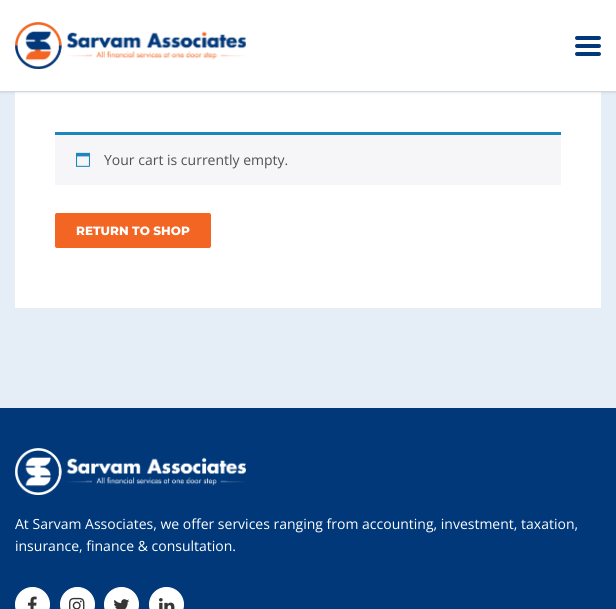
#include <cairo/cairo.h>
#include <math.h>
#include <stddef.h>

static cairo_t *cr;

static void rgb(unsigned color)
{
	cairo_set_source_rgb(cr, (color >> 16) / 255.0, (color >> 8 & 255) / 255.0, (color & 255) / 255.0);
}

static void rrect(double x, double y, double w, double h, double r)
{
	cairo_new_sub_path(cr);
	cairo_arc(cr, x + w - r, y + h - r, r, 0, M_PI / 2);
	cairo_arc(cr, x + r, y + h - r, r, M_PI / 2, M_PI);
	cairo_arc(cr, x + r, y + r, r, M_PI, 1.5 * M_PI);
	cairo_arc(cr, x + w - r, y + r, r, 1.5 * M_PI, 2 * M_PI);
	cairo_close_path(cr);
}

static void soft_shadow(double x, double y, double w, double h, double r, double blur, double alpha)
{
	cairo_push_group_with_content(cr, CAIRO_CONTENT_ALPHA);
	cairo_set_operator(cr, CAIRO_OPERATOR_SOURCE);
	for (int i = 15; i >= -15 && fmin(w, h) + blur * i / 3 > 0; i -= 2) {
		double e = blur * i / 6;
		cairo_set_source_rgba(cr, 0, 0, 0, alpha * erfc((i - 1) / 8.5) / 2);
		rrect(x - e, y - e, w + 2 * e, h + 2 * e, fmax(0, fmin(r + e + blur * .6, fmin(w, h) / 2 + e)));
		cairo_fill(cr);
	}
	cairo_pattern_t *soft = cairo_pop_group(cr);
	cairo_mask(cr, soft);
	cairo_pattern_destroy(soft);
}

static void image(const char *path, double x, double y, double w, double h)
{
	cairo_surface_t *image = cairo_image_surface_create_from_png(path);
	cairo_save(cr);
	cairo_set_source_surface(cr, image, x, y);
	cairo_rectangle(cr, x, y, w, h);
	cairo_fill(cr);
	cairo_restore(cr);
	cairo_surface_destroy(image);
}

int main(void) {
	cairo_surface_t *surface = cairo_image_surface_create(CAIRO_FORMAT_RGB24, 616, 609);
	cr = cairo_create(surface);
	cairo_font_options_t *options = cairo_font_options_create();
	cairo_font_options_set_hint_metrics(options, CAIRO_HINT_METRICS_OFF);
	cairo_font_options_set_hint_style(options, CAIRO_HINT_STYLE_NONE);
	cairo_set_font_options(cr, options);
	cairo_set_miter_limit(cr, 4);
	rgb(0xe5eef6);
	cairo_paint(cr);
	rgb(0xffffff);
	cairo_rectangle(cr, 15, 92, 586, 216);
	cairo_fill(cr);
	rgb(0x000000);
	soft_shadow(0, 1, 616, 91, 0, 1.5, 0.15);
	rgb(0xffffff);
	cairo_rectangle(cr, 0, 0, 616, 91);
	cairo_fill(cr);
	image("img/1.png", 15, 22, 231, 47);
	rgb(0x00387a);
	rrect(575, 44, 26, 4, 2);
	cairo_fill(cr);
	rrect(575, 36, 26, 4, 2);
	cairo_fill(cr);
	rrect(575, 52, 26, 4, 2);
	cairo_fill(cr);
	rgb(0xf6f5f8);
	cairo_rectangle(cr, 55, 135, 506, 50);
	cairo_fill(cr);
	rgb(0x1e85be);
	cairo_rectangle(cr, 55, 132, 506, 3);
	cairo_fill(cr);
	image("img/2.png", 76, 152, 14, 15);
	rgb(0xf26522);
	rrect(55, 213, 156, 35, 2);
	cairo_fill(cr);
	rgb(0x00387a);
	cairo_rectangle(cr, 0, 408, 616, 201);
	cairo_fill(cr);
	image("img/3.png", 15, 448, 231, 47);
	rgb(0xffffff);
	cairo_arc(cr, 32.5, 604.5, 17, 0, 2 * M_PI);
	cairo_fill_preserve(cr);
	cairo_set_line_width(cr, 1);
	cairo_stroke(cr);
	image("img/4.png", 27, 596, 10, 13);
	cairo_arc(cr, 77.5, 604.5, 17, 0, 2 * M_PI);
	cairo_fill_preserve(cr);
	cairo_stroke(cr);
	image("img/5.png", 69, 597, 16, 12);
	cairo_arc(cr, 121.5, 604.5, 17, 0, 2 * M_PI);
	cairo_fill_preserve(cr);
	cairo_stroke(cr);
	image("img/6.png", 114, 599, 16, 10);
	cairo_arc(cr, 166.5, 604.5, 17, 0, 2 * M_PI);
	cairo_fill_preserve(cr);
	cairo_stroke(cr);
	image("img/7.png", 159, 598, 16, 11);
	cairo_select_font_face(cr, "Open Sans", CAIRO_FONT_SLANT_NORMAL, CAIRO_FONT_WEIGHT_NORMAL);
	cairo_set_font_size(cr, 14);
	rgb(0x515151);
	cairo_move_to(cr, 104, 165);
	cairo_show_text(cr, "Your cart is currently empty.");
	cairo_select_font_face(cr, "Montserrat ExtraBold", CAIRO_FONT_SLANT_NORMAL, CAIRO_FONT_WEIGHT_NORMAL);
	cairo_set_font_size(cr, 12);
	rgb(0xffffff);
	cairo_move_to(cr, 76, 235);
	cairo_show_text(cr, "RETURN TO SHOP");
	cairo_select_font_face(cr, "Open Sans", CAIRO_FONT_SLANT_NORMAL, CAIRO_FONT_WEIGHT_NORMAL);
	cairo_set_font_size(cr, 14);
	cairo_move_to(cr, 15, 529);
	cairo_show_text(cr, "At Sarvam Associates, we offer services ranging from accounting, investment, taxation,");
	cairo_move_to(cr, 15, 551);
	cairo_show_text(cr, "insurance, finance & consultation.");
	cairo_surface_write_to_png(surface, "page.png");
	cairo_font_options_destroy(options);
	cairo_destroy(cr);
	cairo_surface_destroy(surface);
	return 0;
}
